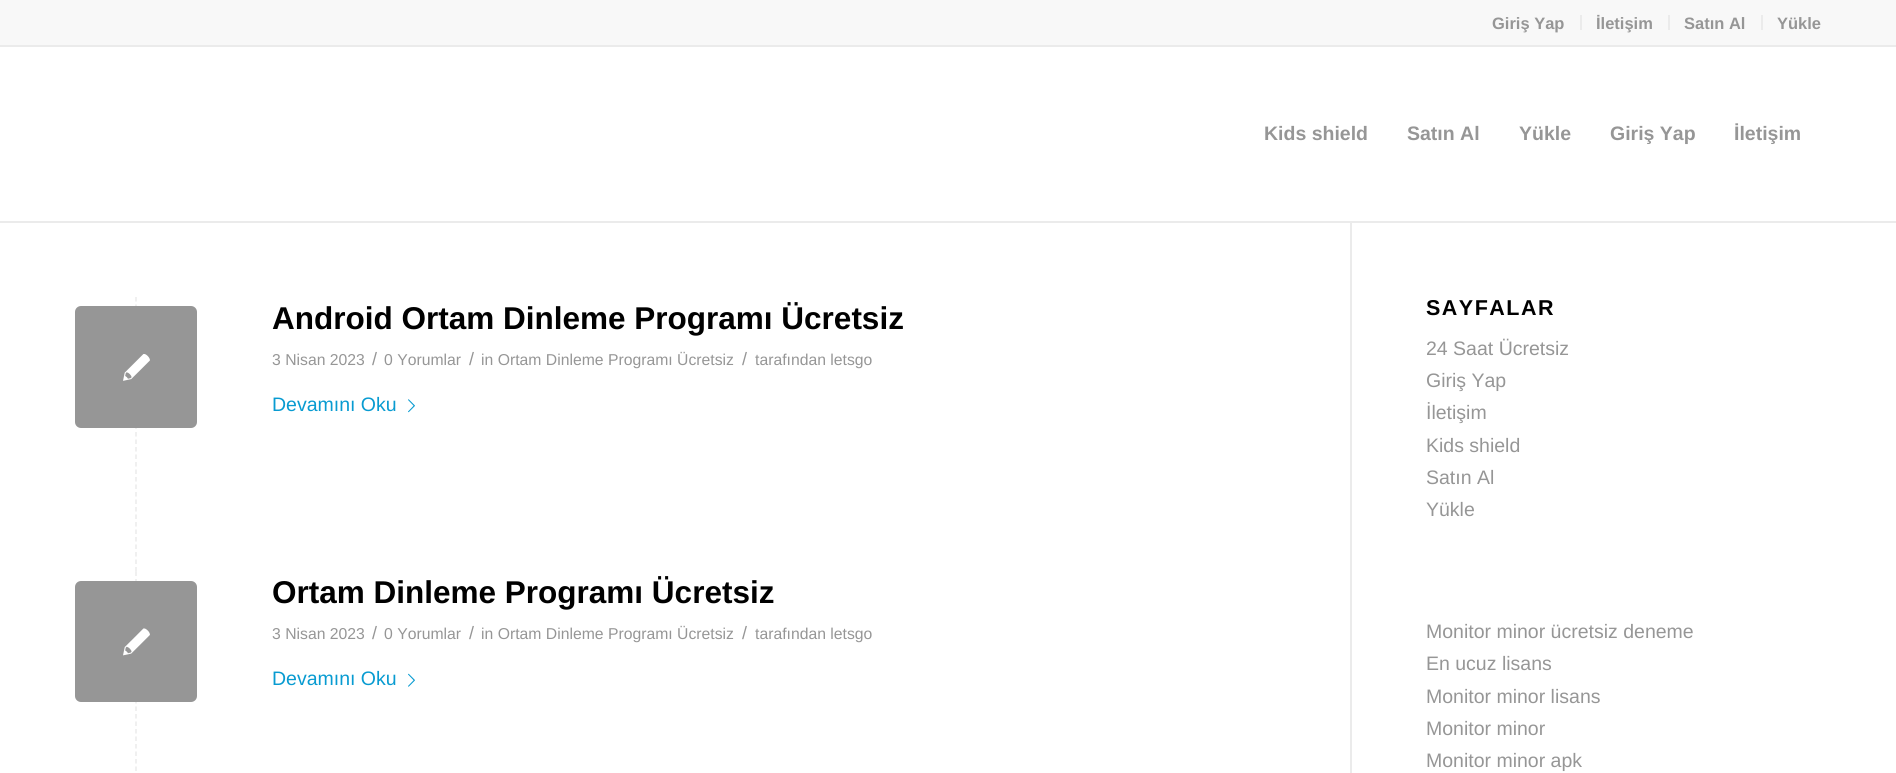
#include <cairo/cairo.h>
#include <math.h>
#include <stddef.h>

typedef struct { double x, y; const char *s; } line_t;
typedef struct { double x, y, w, h; unsigned color; } box_t;
static cairo_t *cr;

static void rgb(unsigned color)
{
	cairo_set_source_rgb(cr, (color >> 16) / 255.0, (color >> 8 & 255) / 255.0, (color & 255) / 255.0);
}

static void tracked(double x, double y, const char *s, double letter, double word)
{
	cairo_move_to(cr, x, y);
	while (*s) {
		char ch[5] = {0};
		int n = 0;
		do ch[n++] = *s++; while ((*s & 0xC0) == 0x80);
		cairo_show_text(cr, ch);
		cairo_rel_move_to(cr, letter + word * (*ch == ' '), 0);
	}
}

static void rrect(double x, double y, double w, double h, double r)
{
	cairo_new_sub_path(cr);
	cairo_arc(cr, x + w - r, y + h - r, r, 0, M_PI / 2);
	cairo_arc(cr, x + r, y + h - r, r, M_PI / 2, M_PI);
	cairo_arc(cr, x + r, y + r, r, M_PI, 1.5 * M_PI);
	cairo_arc(cr, x + w - r, y + r, r, 1.5 * M_PI, 2 * M_PI);
	cairo_close_path(cr);
}

static void image(const char *path, double x, double y, double w, double h)
{
	cairo_surface_t *image = cairo_image_surface_create_from_png(path);
	cairo_save(cr);
	cairo_set_source_surface(cr, image, x, y);
	cairo_rectangle(cr, x, y, w, h);
	cairo_fill(cr);
	cairo_restore(cr);
	cairo_surface_destroy(image);
}

int main(void) {
	cairo_surface_t *surface = cairo_image_surface_create(CAIRO_FORMAT_RGB24, 1896, 773);
	cr = cairo_create(surface);
	cairo_font_options_t *options = cairo_font_options_create();
	cairo_font_options_set_hint_metrics(options, CAIRO_HINT_METRICS_OFF);
	cairo_font_options_set_hint_style(options, CAIRO_HINT_STYLE_NONE);
	cairo_set_font_options(cr, options);
	cairo_set_miter_limit(cr, 4);
	rgb(0xffffff);
	cairo_paint(cr);
	{
		static const box_t items[] = {
			{0, 0, 1896, 45, 0xf8f8f8},
			{0, 45, 1896, 2, 0xebebeb},
			{1580, 15, 2, 15, 0xebebeb},
			{1668, 15, 2, 15, 0xebebeb},
			{1761, 15, 2, 15, 0xebebeb},
			{1350, 222, 2, 551, 0xebebeb},
			{0, 221, 1896, 2, 0xebebeb},
		};
		for (size_t i = 0; i < sizeof items / sizeof *items; i++) {
			rgb(items[i].color);
			cairo_rectangle(cr, items[i].x, items[i].y, items[i].w, items[i].h);
			cairo_fill(cr);
		}
	}
	cairo_new_path(cr);
	cairo_move_to(cr, 136, 297);
	cairo_line_to(cr, 136, 571.5);
	cairo_set_line_width(cr, 1.5);
	cairo_set_dash(cr, (double[]){4.5, 3}, 2, 0);
	cairo_stroke(cr);
	image("img/1.png", 408, 399, 7, 14);
	rgb(0x969696);
	rrect(75, 306, 122, 122, 6);
	cairo_fill(cr);
	image("img/2.png", 123, 354, 27, 27);
	cairo_new_path(cr);
	cairo_move_to(cr, 136, 571.5);
	cairo_line_to(cr, 136, 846);
	rgb(0xebebeb);
	cairo_stroke(cr);
	image("img/3.png", 408, 673, 7, 14);
	rgb(0x969696);
	rrect(75, 581, 122, 121, 6);
	cairo_fill(cr);
	image("img/4.png", 123, 628, 27, 28);
	cairo_select_font_face(cr, "Liberation Sans", CAIRO_FONT_SLANT_NORMAL, CAIRO_FONT_WEIGHT_BOLD);
	cairo_set_font_size(cr, 16.5);
	{
		static const line_t items[] = {
			{1492, 29, "Giriş Yap"},
			{1596, 29, "İletişim"},
			{1684, 29, "Satın Al"},
			{1777, 29, "Yükle"},
		};
		for (size_t i = 0; i < sizeof items / sizeof *items; i++) {
			cairo_move_to(cr, items[i].x, items[i].y);
			cairo_show_text(cr, items[i].s);
		}
	}
	cairo_set_font_size(cr, 19.5);
	{
		static const line_t items[] = {
			{1264, 140, "Kids shield"},
			{1407, 140, "Satın Al"},
			{1519, 140, "Yükle"},
			{1610, 140, "Giriş Yap"},
			{1734, 140, "İletişim"},
		};
		for (size_t i = 0; i < sizeof items / sizeof *items; i++) {
			cairo_move_to(cr, items[i].x, items[i].y);
			cairo_show_text(cr, items[i].s);
		}
	}
	cairo_set_font_size(cr, 31.5);
	rgb(0x000000);
	cairo_move_to(cr, 272, 329);
	cairo_show_text(cr, "Android Ortam Dinleme Programı Ücretsiz");
	cairo_select_font_face(cr, "Liberation Sans", CAIRO_FONT_SLANT_NORMAL, CAIRO_FONT_WEIGHT_NORMAL);
	cairo_set_font_size(cr, 15.75);
	rgb(0x969696);
	cairo_move_to(cr, 272, 365);
	cairo_show_text(cr, "3 Nisan 2023");
	cairo_set_font_size(cr, 18);
	cairo_move_to(cr, 372, 365);
	cairo_show_text(cr, "/");
	cairo_set_font_size(cr, 15.75);
	cairo_move_to(cr, 384, 365);
	cairo_show_text(cr, "0 Yorumlar");
	cairo_set_font_size(cr, 18);
	cairo_move_to(cr, 469, 365);
	cairo_show_text(cr, "/");
	cairo_set_font_size(cr, 15.75);
	cairo_move_to(cr, 481, 365);
	cairo_show_text(cr, "in Ortam Dinleme Programı Ücretsiz");
	cairo_set_font_size(cr, 18);
	cairo_move_to(cr, 742, 365);
	cairo_show_text(cr, "/");
	cairo_set_font_size(cr, 15.75);
	cairo_move_to(cr, 755, 365);
	cairo_show_text(cr, "tarafından letsgo");
	cairo_set_font_size(cr, 19.5);
	rgb(0x089bd1);
	cairo_move_to(cr, 272, 411);
	cairo_show_text(cr, "Devamını Oku");
	cairo_select_font_face(cr, "Liberation Sans", CAIRO_FONT_SLANT_NORMAL, CAIRO_FONT_WEIGHT_BOLD);
	cairo_set_font_size(cr, 31.5);
	rgb(0x000000);
	cairo_move_to(cr, 272, 603);
	cairo_show_text(cr, "Ortam Dinleme Programı Ücretsiz");
	cairo_select_font_face(cr, "Liberation Sans", CAIRO_FONT_SLANT_NORMAL, CAIRO_FONT_WEIGHT_NORMAL);
	cairo_set_font_size(cr, 15.75);
	rgb(0x969696);
	cairo_move_to(cr, 272, 639);
	cairo_show_text(cr, "3 Nisan 2023");
	cairo_set_font_size(cr, 18);
	cairo_move_to(cr, 372, 639);
	cairo_show_text(cr, "/");
	cairo_set_font_size(cr, 15.75);
	cairo_move_to(cr, 384, 639);
	cairo_show_text(cr, "0 Yorumlar");
	cairo_set_font_size(cr, 18);
	cairo_move_to(cr, 469, 639);
	cairo_show_text(cr, "/");
	cairo_set_font_size(cr, 15.75);
	cairo_move_to(cr, 481, 639);
	cairo_show_text(cr, "in Ortam Dinleme Programı Ücretsiz");
	cairo_set_font_size(cr, 18);
	cairo_move_to(cr, 742, 639);
	cairo_show_text(cr, "/");
	cairo_set_font_size(cr, 15.75);
	cairo_move_to(cr, 755, 639);
	cairo_show_text(cr, "tarafından letsgo");
	cairo_set_font_size(cr, 19.5);
	rgb(0x089bd1);
	cairo_move_to(cr, 272, 685);
	cairo_show_text(cr, "Devamını Oku");
	cairo_select_font_face(cr, "Liberation Sans", CAIRO_FONT_SLANT_NORMAL, CAIRO_FONT_WEIGHT_BOLD);
	cairo_set_font_size(cr, 21.5);
	rgb(0x000000);
	tracked(1426, 315, "SAYFALAR", 1.5, 0);
	cairo_select_font_face(cr, "Liberation Sans", CAIRO_FONT_SLANT_NORMAL, CAIRO_FONT_WEIGHT_NORMAL);
	cairo_set_font_size(cr, 19.5);
	rgb(0x969696);
	{
		static const line_t items[] = {
			{1426, 355, "24 Saat Ücretsiz"},
			{1426, 387, "Giriş Yap"},
			{1426, 419, "İletişim"},
			{1426, 452, "Kids shield"},
			{1426, 484, "Satın Al"},
			{1426, 516, "Yükle"},
			{1426, 638, "Monitor minor ücretsiz deneme"},
			{1426, 670, "En ucuz lisans"},
			{1426, 703, "Monitor minor lisans"},
			{1426, 735, "Monitor minor"},
			{1426, 767, "Monitor minor apk"},
		};
		for (size_t i = 0; i < sizeof items / sizeof *items; i++) {
			cairo_move_to(cr, items[i].x, items[i].y);
			cairo_show_text(cr, items[i].s);
		}
	}
	cairo_surface_write_to_png(surface, "page.png");
	cairo_font_options_destroy(options);
	cairo_destroy(cr);
	cairo_surface_destroy(surface);
	return 0;
}
